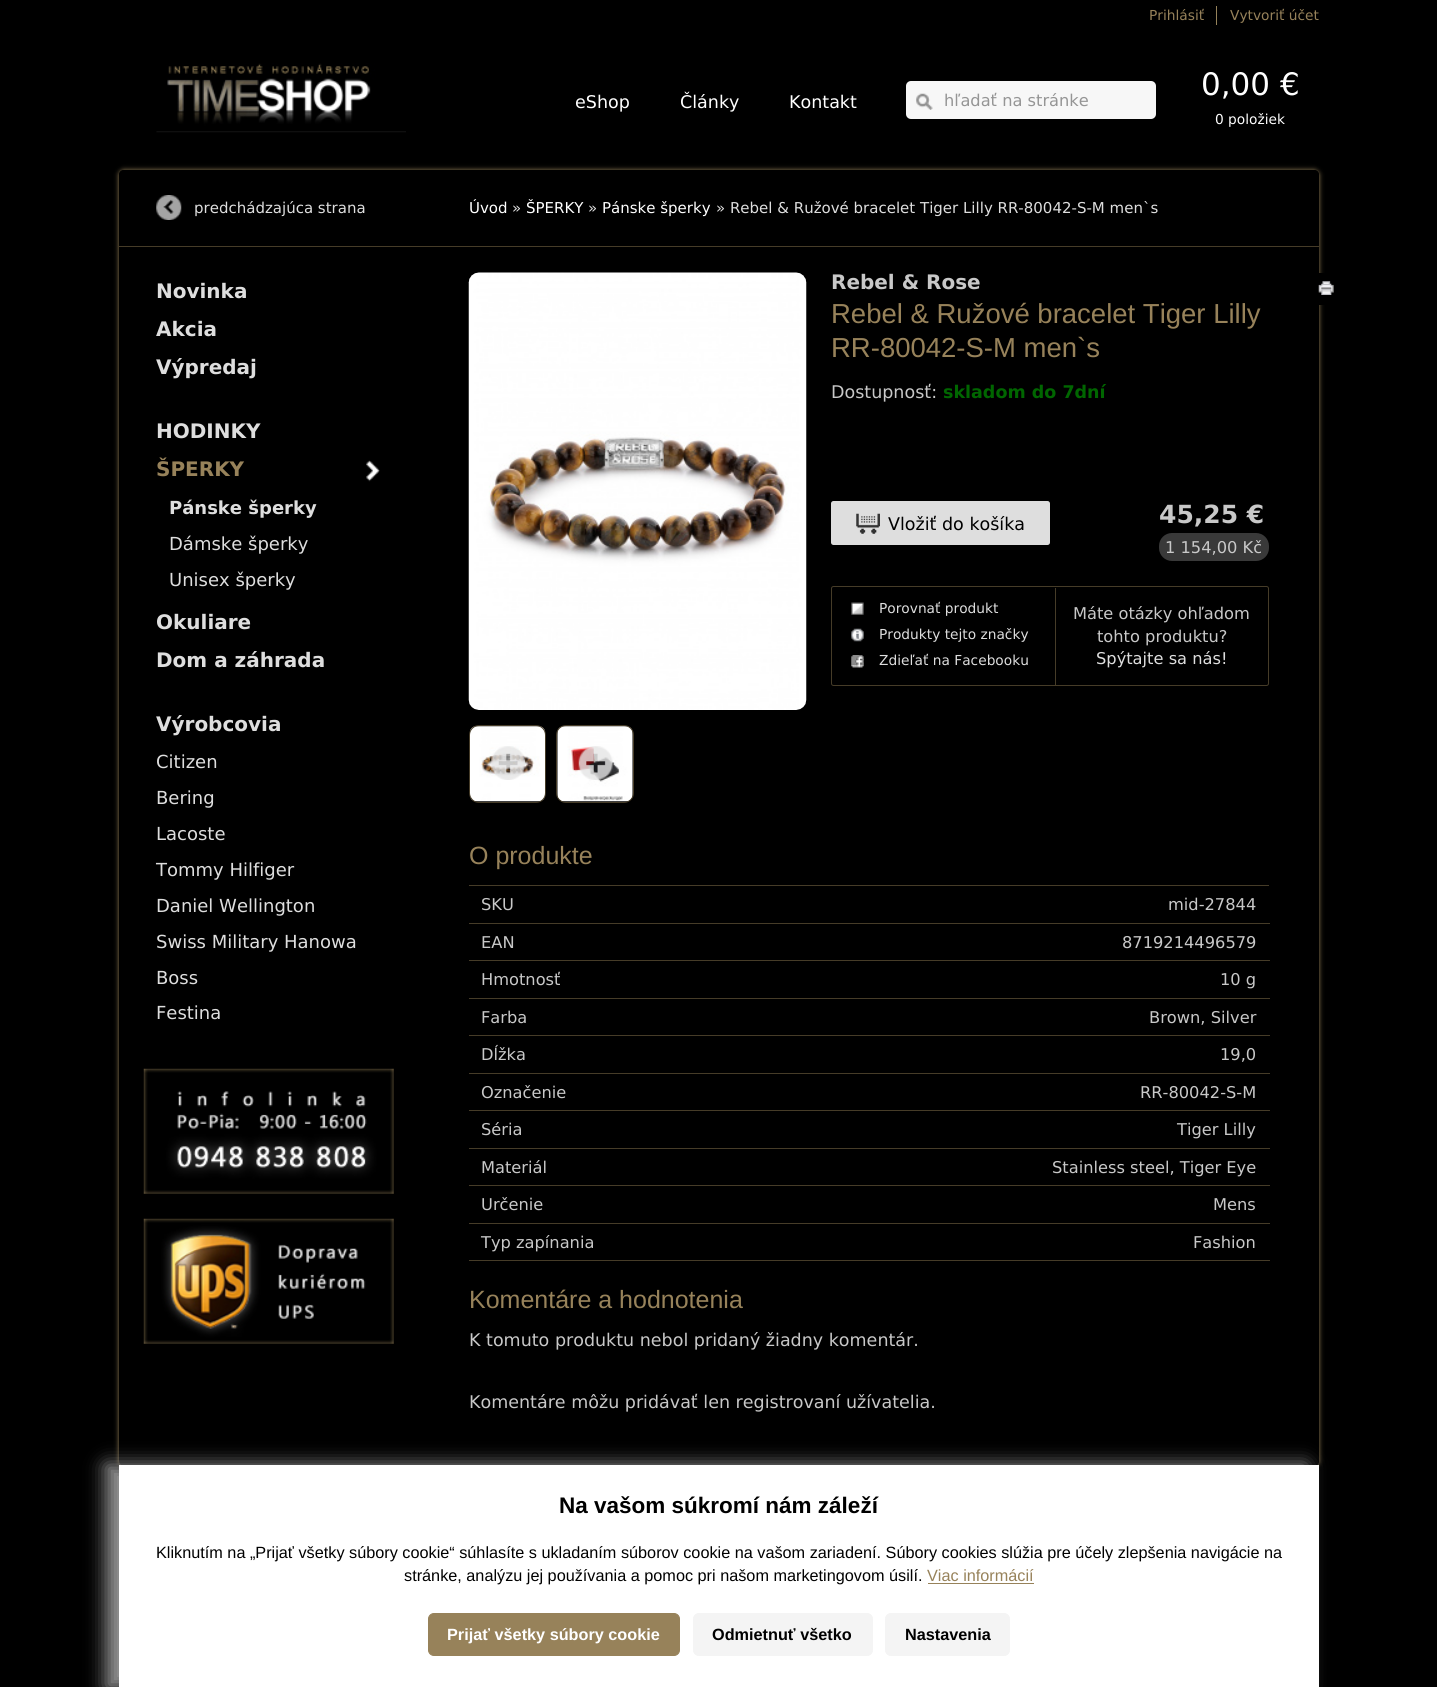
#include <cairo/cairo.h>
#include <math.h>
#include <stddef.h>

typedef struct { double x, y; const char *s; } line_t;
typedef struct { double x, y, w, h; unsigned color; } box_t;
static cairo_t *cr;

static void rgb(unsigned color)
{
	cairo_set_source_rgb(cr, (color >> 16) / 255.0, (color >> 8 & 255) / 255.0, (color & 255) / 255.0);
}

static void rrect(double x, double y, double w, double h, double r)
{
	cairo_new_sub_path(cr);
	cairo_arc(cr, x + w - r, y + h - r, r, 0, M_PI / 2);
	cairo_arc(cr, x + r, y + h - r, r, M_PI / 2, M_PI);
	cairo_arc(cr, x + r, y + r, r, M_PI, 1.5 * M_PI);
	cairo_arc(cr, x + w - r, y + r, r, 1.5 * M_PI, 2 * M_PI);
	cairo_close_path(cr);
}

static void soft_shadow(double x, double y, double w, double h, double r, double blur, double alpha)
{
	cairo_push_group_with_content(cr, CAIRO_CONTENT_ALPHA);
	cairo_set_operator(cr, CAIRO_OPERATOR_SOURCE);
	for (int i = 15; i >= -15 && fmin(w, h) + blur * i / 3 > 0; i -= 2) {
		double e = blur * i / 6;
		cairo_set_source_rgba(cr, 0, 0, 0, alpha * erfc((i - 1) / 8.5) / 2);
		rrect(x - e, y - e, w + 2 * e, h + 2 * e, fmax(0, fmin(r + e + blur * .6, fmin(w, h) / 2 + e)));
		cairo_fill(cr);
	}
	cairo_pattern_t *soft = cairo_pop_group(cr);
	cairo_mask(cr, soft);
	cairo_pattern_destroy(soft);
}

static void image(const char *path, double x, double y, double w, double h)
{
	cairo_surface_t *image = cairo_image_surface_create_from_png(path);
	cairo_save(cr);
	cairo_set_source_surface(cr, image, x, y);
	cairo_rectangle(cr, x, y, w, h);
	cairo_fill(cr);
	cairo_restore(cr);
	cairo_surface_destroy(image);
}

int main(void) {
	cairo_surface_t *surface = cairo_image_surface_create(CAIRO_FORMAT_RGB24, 1437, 1687);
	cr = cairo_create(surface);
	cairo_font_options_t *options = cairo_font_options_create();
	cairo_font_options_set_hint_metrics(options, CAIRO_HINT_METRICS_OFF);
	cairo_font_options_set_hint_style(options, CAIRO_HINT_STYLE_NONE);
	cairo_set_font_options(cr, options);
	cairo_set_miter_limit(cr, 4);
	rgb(0x000000);
	cairo_paint(cr);
	rgb(0x95825a);
	cairo_rectangle(cr, 1216, 6, 1, 19);
	cairo_fill(cr);
	image("img/1.png", 156, 63, 250, 70);
	rgb(0xf7f7f7);
	rrect(906, 81, 250, 38, 5);
	cairo_fill(cr);
	image("img/2.png", 916, 93, 17, 17);
	rgb(0x97825a);
	soft_shadow(119, 170, 1200, 1296, 5, 2.5, 1);
	rgb(0x000000);
	rrect(119, 170, 1200, 1296, 5);
	cairo_fill(cr);
	cairo_new_path(cr);
	cairo_move_to(cr, 124, 170);
	cairo_line_to(cr, 419, 170);
	cairo_line_to(cr, 419, 1369);
	cairo_line_to(cr, 124, 1369);
	cairo_curve_to(cr, 121, 1369, 119, 1367, 119, 1364);
	cairo_line_to(cr, 119, 175);
	cairo_curve_to(cr, 119, 172, 121, 170, 124, 170);
	cairo_close_path(cr);
	cairo_fill(cr);
	cairo_new_path(cr);
	cairo_move_to(cr, 419, 170);
	cairo_line_to(cr, 1314, 170);
	cairo_curve_to(cr, 1317, 170, 1319, 172, 1319, 175);
	cairo_line_to(cr, 1319, 1461);
	cairo_curve_to(cr, 1319, 1464, 1317, 1466, 1314, 1466);
	cairo_line_to(cr, 419, 1466);
	cairo_close_path(cr);
	cairo_fill(cr);
	rgb(0x463c28);
	cairo_rectangle(cr, 119, 246, 1200, 1);
	cairo_fill(cr);
	image("img/3.png", 156, 195, 26, 25);
	image("img/4.png", 366, 460, 14, 22);
	image("img/5.png", 143, 1068, 251, 126);
	image("img/6.png", 143, 1218, 251, 126);
	image("img/7.png", 468, 272, 339, 438);
	image("img/8.png", 470, 726, 75, 76);
	rrect(469.5, 725.5, 76, 77, 9.5);
	cairo_set_line_width(cr, 1);
	cairo_stroke(cr);
	image("img/9.png", 491, 746, 34, 34);
	image("img/10.png", 557, 726, 76, 76);
	rrect(556.5, 725.5, 77, 77, 9.5);
	cairo_stroke(cr);
	image("img/11.png", 578, 746, 35, 34);
	rgb(0x000000);
	cairo_new_path(cr);
	cairo_move_to(cr, 1318, 273);
	cairo_line_to(cr, 1331, 273);
	cairo_curve_to(cr, 1338, 273, 1344, 279, 1344, 286);
	cairo_line_to(cr, 1344, 292);
	cairo_curve_to(cr, 1344, 299, 1338, 305, 1331, 305);
	cairo_line_to(cr, 1318, 305);
	cairo_close_path(cr);
	cairo_fill(cr);
	image("img/12.png", 1318, 281, 16, 14);
	rgb(0xdedede);
	rrect(831, 501, 219, 44, 2.5);
	cairo_fill(cr);
	image("img/13.png", 856, 513, 24, 21);
	rgb(0x393939);
	rrect(1159, 533, 110, 28, 13);
	cairo_fill(cr);
	rrect(831.5, 586.5, 437, 99, 2);
	rgb(0x463c28);
	cairo_stroke(cr);
	cairo_rectangle(cr, 1055, 588, 1, 97);
	cairo_fill(cr);
	image("img/14.png", 851, 602, 13, 13);
	image("img/15.png", 851, 628, 13, 14);
	image("img/16.png", 851, 655, 13, 13);
	{
		static const box_t items[] = {
			{469, 885, 800, 1, 0x463c28},
			{469, 923, 801, 1, 0x463c28},
			{469, 960, 801, 1, 0x463c28},
			{469, 998, 801, 1, 0x463c28},
			{469, 1035, 801, 1, 0x463c28},
			{469, 1073, 801, 1, 0x463c28},
			{469, 1110, 801, 1, 0x463c28},
			{469, 1148, 801, 1, 0x463c28},
			{469, 1185, 801, 1, 0x463c28},
			{469, 1223, 801, 1, 0x463c28},
			{469, 1260, 801, 1, 0x463c28},
		};
		for (size_t i = 0; i < sizeof items / sizeof *items; i++) {
			rgb(items[i].color);
			cairo_rectangle(cr, items[i].x, items[i].y, items[i].w, items[i].h);
			cairo_fill(cr);
		}
	}
	rgb(0x999999);
	soft_shadow(106, 1465, 1200, 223, 0, 9.5, 1);
	rgb(0xffffff);
	cairo_rectangle(cr, 119, 1465, 1200, 222);
	cairo_fill(cr);
	rgb(0x97825a);
	cairo_rectangle(cr, 928, 1583, 106, 1);
	cairo_fill(cr);
	rrect(428.5, 1613.5, 251, 42, 5.5);
	cairo_fill_preserve(cr);
	cairo_stroke(cr);
	rgb(0xf4f4f4);
	rrect(693.5, 1613.5, 179, 42, 5.5);
	cairo_fill_preserve(cr);
	cairo_stroke(cr);
	rrect(885.5, 1613.5, 124, 42, 5.5);
	cairo_fill_preserve(cr);
	cairo_stroke(cr);
	cairo_select_font_face(cr, "DejaVu Sans", CAIRO_FONT_SLANT_NORMAL, CAIRO_FONT_WEIGHT_NORMAL);
	cairo_set_font_size(cr, 13.75);
	rgb(0x97825a);
	cairo_move_to(cr, 1149, 20);
	cairo_show_text(cr, "Prihlásiť");
	cairo_move_to(cr, 1230, 20);
	cairo_show_text(cr, "Vytvoriť účet");
	cairo_set_font_size(cr, 17.5);
	rgb(0xffffff);
	{
		static const line_t items[] = {
			{575, 108, "eShop"},
			{680, 108, "Články"},
			{789, 108, "Kontakt"},
		};
		for (size_t i = 0; i < sizeof items / sizeof *items; i++) {
			cairo_move_to(cr, items[i].x, items[i].y);
			cairo_show_text(cr, items[i].s);
		}
	}
	cairo_set_font_size(cr, 16.25);
	rgb(0x959595);
	cairo_move_to(cr, 944, 106);
	cairo_show_text(cr, "hľadať na stránke");
	cairo_set_font_size(cr, 31);
	rgb(0xffffff);
	cairo_move_to(cr, 1201, 95);
	cairo_show_text(cr, "0,00 €");
	cairo_set_font_size(cr, 13.75);
	cairo_move_to(cr, 1215, 124);
	cairo_show_text(cr, "0 položiek");
	cairo_set_font_size(cr, 15);
	rgb(0xdedede);
	cairo_move_to(cr, 194, 213);
	cairo_show_text(cr, "predchádzajúca strana");
	cairo_select_font_face(cr, "DejaVu Sans", CAIRO_FONT_SLANT_NORMAL, CAIRO_FONT_WEIGHT_BOLD);
	cairo_set_font_size(cr, 20);
	{
		static const line_t items[] = {
			{156, 298, "Novinka"},
			{156, 336, "Akcia"},
			{156, 374, "Výpredaj"},
			{156, 438, "HODINKY"},
		};
		for (size_t i = 0; i < sizeof items / sizeof *items; i++) {
			cairo_move_to(cr, items[i].x, items[i].y);
			cairo_show_text(cr, items[i].s);
		}
	}
	rgb(0x97825a);
	cairo_move_to(cr, 156, 476);
	cairo_show_text(cr, "ŠPERKY");
	cairo_set_font_size(cr, 18);
	rgb(0xdedede);
	cairo_move_to(cr, 169, 514);
	cairo_show_text(cr, "Pánske šperky");
	cairo_select_font_face(cr, "DejaVu Sans", CAIRO_FONT_SLANT_NORMAL, CAIRO_FONT_WEIGHT_NORMAL);
	cairo_move_to(cr, 169, 550);
	cairo_show_text(cr, "Dámske šperky");
	cairo_move_to(cr, 169, 586);
	cairo_show_text(cr, "Unisex šperky");
	cairo_select_font_face(cr, "DejaVu Sans", CAIRO_FONT_SLANT_NORMAL, CAIRO_FONT_WEIGHT_BOLD);
	cairo_set_font_size(cr, 20);
	{
		static const line_t items[] = {
			{156, 629, "Okuliare"},
			{156, 667, "Dom a záhrada"},
			{156, 731, "Výrobcovia"},
		};
		for (size_t i = 0; i < sizeof items / sizeof *items; i++) {
			cairo_move_to(cr, items[i].x, items[i].y);
			cairo_show_text(cr, items[i].s);
		}
	}
	cairo_select_font_face(cr, "DejaVu Sans", CAIRO_FONT_SLANT_NORMAL, CAIRO_FONT_WEIGHT_NORMAL);
	cairo_set_font_size(cr, 18);
	{
		static const line_t items[] = {
			{156, 768, "Citizen"},
			{156, 804, "Bering"},
			{156, 840, "Lacoste"},
			{156, 876, "Tommy Hilfiger"},
			{156, 912, "Daniel Wellington"},
			{156, 948, "Swiss Military Hanowa"},
			{156, 984, "Boss"},
			{156, 1019, "Festina"},
		};
		for (size_t i = 0; i < sizeof items / sizeof *items; i++) {
			cairo_move_to(cr, items[i].x, items[i].y);
			cairo_show_text(cr, items[i].s);
		}
	}
	cairo_set_font_size(cr, 15);
	rgb(0xffffff);
	cairo_move_to(cr, 469, 213);
	cairo_show_text(cr, "Úvod");
	rgb(0xdedede);
	cairo_move_to(cr, 512, 213);
	cairo_show_text(cr, "»");
	rgb(0xffffff);
	cairo_move_to(cr, 526, 213);
	cairo_show_text(cr, "ŠPERKY");
	rgb(0xdedede);
	cairo_move_to(cr, 588, 213);
	cairo_show_text(cr, "»");
	rgb(0xffffff);
	cairo_move_to(cr, 602, 213);
	cairo_show_text(cr, "Pánske šperky");
	rgb(0xdedede);
	cairo_move_to(cr, 716, 213);
	cairo_show_text(cr, "» Rebel & Ružové bracelet Tiger Lilly RR-80042-S-M men`s");
	cairo_select_font_face(cr, "DejaVu Sans", CAIRO_FONT_SLANT_NORMAL, CAIRO_FONT_WEIGHT_BOLD);
	cairo_set_font_size(cr, 20);
	rgb(0xc8c8c8);
	cairo_move_to(cr, 831, 289);
	cairo_show_text(cr, "Rebel & Rose");
	cairo_select_font_face(cr, "Liberation Sans", CAIRO_FONT_SLANT_NORMAL, CAIRO_FONT_WEIGHT_NORMAL);
	cairo_set_font_size(cr, 27.5);
	rgb(0x97825a);
	cairo_move_to(cr, 831, 323);
	cairo_show_text(cr, "Rebel & Ružové bracelet Tiger Lilly");
	cairo_move_to(cr, 831, 357);
	cairo_show_text(cr, "RR-80042-S-M men`s");
	cairo_select_font_face(cr, "DejaVu Sans", CAIRO_FONT_SLANT_NORMAL, CAIRO_FONT_WEIGHT_NORMAL);
	cairo_set_font_size(cr, 17.5);
	rgb(0xc8c8c8);
	cairo_move_to(cr, 831, 398);
	cairo_show_text(cr, "Dostupnosť:");
	cairo_select_font_face(cr, "DejaVu Sans", CAIRO_FONT_SLANT_NORMAL, CAIRO_FONT_WEIGHT_BOLD);
	rgb(0x006600);
	cairo_move_to(cr, 943, 398);
	cairo_show_text(cr, "skladom do 7dní");
	cairo_select_font_face(cr, "DejaVu Sans", CAIRO_FONT_SLANT_NORMAL, CAIRO_FONT_WEIGHT_NORMAL);
	rgb(0x000000);
	cairo_move_to(cr, 888, 530);
	cairo_show_text(cr, "Vložiť do košíka");
	cairo_select_font_face(cr, "DejaVu Sans", CAIRO_FONT_SLANT_NORMAL, CAIRO_FONT_WEIGHT_BOLD);
	cairo_set_font_size(cr, 25);
	rgb(0xc8c8c8);
	cairo_move_to(cr, 1159, 523);
	cairo_show_text(cr, "45,25 €");
	cairo_select_font_face(cr, "DejaVu Sans", CAIRO_FONT_SLANT_NORMAL, CAIRO_FONT_WEIGHT_NORMAL);
	cairo_set_font_size(cr, 16.25);
	cairo_move_to(cr, 1165, 553);
	cairo_show_text(cr, "1 154,00 Kč");
	cairo_set_font_size(cr, 13.75);
	rgb(0xdedede);
	{
		static const line_t items[] = {
			{879, 613, "Porovnať produkt"},
			{879, 639, "Produkty tejto značky"},
			{879, 665, "Zdieľať na Facebooku"},
		};
		for (size_t i = 0; i < sizeof items / sizeof *items; i++) {
			cairo_move_to(cr, items[i].x, items[i].y);
			cairo_show_text(cr, items[i].s);
		}
	}
	cairo_set_font_size(cr, 16.25);
	rgb(0xc8c8c8);
	cairo_move_to(cr, 1073, 619);
	cairo_show_text(cr, "Máte otázky ohľadom");
	cairo_move_to(cr, 1097, 642);
	cairo_show_text(cr, "tohto produktu?");
	rgb(0xdedede);
	cairo_move_to(cr, 1096, 664);
	cairo_show_text(cr, "Spýtajte sa nás!");
	cairo_select_font_face(cr, "Liberation Sans", CAIRO_FONT_SLANT_NORMAL, CAIRO_FONT_WEIGHT_NORMAL);
	cairo_set_font_size(cr, 25);
	rgb(0x97825a);
	cairo_move_to(cr, 469, 864);
	cairo_show_text(cr, "O produkte");
	cairo_select_font_face(cr, "DejaVu Sans", CAIRO_FONT_SLANT_NORMAL, CAIRO_FONT_WEIGHT_NORMAL);
	cairo_set_font_size(cr, 16.25);
	rgb(0xc8c8c8);
	{
		static const line_t items[] = {
			{481, 910, "SKU"},
			{1168, 910, "mid-27844"},
			{481, 948, "EAN"},
			{1122, 948, "8719214496579"},
			{481, 985, "Hmotnosť"},
			{1220, 985, "10 g"},
			{481, 1023, "Farba"},
			{1149, 1023, "Brown, Silver"},
			{481, 1060, "Dĺžka"},
			{1220, 1060, "19,0"},
			{481, 1098, "Označenie"},
			{1140, 1098, "RR-80042-S-M"},
			{481, 1135, "Séria"},
			{1177, 1135, "Tiger Lilly"},
			{481, 1173, "Materiál"},
			{1052, 1173, "Stainless steel, Tiger Eye"},
			{481, 1210, "Určenie"},
			{1213, 1210, "Mens"},
			{481, 1248, "Typ zapínania"},
			{1193, 1248, "Fashion"},
		};
		for (size_t i = 0; i < sizeof items / sizeof *items; i++) {
			cairo_move_to(cr, items[i].x, items[i].y);
			cairo_show_text(cr, items[i].s);
		}
	}
	cairo_select_font_face(cr, "Liberation Sans", CAIRO_FONT_SLANT_NORMAL, CAIRO_FONT_WEIGHT_NORMAL);
	cairo_set_font_size(cr, 25);
	rgb(0x97825a);
	cairo_move_to(cr, 469, 1308);
	cairo_show_text(cr, "Komentáre a hodnotenia");
	cairo_select_font_face(cr, "DejaVu Sans", CAIRO_FONT_SLANT_NORMAL, CAIRO_FONT_WEIGHT_NORMAL);
	cairo_set_font_size(cr, 17.5);
	rgb(0xc8c8c8);
	cairo_move_to(cr, 469, 1346);
	cairo_show_text(cr, "K tomuto produktu nebol pridaný žiadny komentár.");
	cairo_move_to(cr, 469, 1408);
	cairo_show_text(cr, "Komentáre môžu pridávať len registrovaní užívatelia.");
	cairo_select_font_face(cr, "Liberation Sans", CAIRO_FONT_SLANT_NORMAL, CAIRO_FONT_WEIGHT_BOLD);
	cairo_set_font_size(cr, 22.5);
	rgb(0x000000);
	cairo_move_to(cr, 559, 1513);
	cairo_show_text(cr, "Na vašom súkromí nám záleží");
	cairo_select_font_face(cr, "Liberation Sans", CAIRO_FONT_SLANT_NORMAL, CAIRO_FONT_WEIGHT_NORMAL);
	cairo_set_font_size(cr, 16.25);
	cairo_move_to(cr, 156, 1558);
	cairo_show_text(cr, "Kliknutím na „Prijať všetky súbory cookie“ súhlasíte s ukladaním súborov cookie na vašom zariadení. Súbory cookies slúžia pre účely zlepšenia navigácie na");
	cairo_move_to(cr, 404, 1581);
	cairo_show_text(cr, "stránke, analýzu jej používania a pomoc pri našom marketingovom úsilí.");
	rgb(0x97825a);
	cairo_move_to(cr, 927, 1581);
	cairo_show_text(cr, "Viac informácií");
	cairo_select_font_face(cr, "Liberation Sans", CAIRO_FONT_SLANT_NORMAL, CAIRO_FONT_WEIGHT_BOLD);
	rgb(0xffffff);
	cairo_move_to(cr, 447, 1640);
	cairo_show_text(cr, "Prijať všetky súbory cookie");
	rgb(0x000000);
	cairo_move_to(cr, 712, 1640);
	cairo_show_text(cr, "Odmietnuť všetko");
	cairo_move_to(cr, 905, 1640);
	cairo_show_text(cr, "Nastavenia");
	cairo_surface_write_to_png(surface, "page.png");
	cairo_font_options_destroy(options);
	cairo_destroy(cr);
	cairo_surface_destroy(surface);
	return 0;
}
